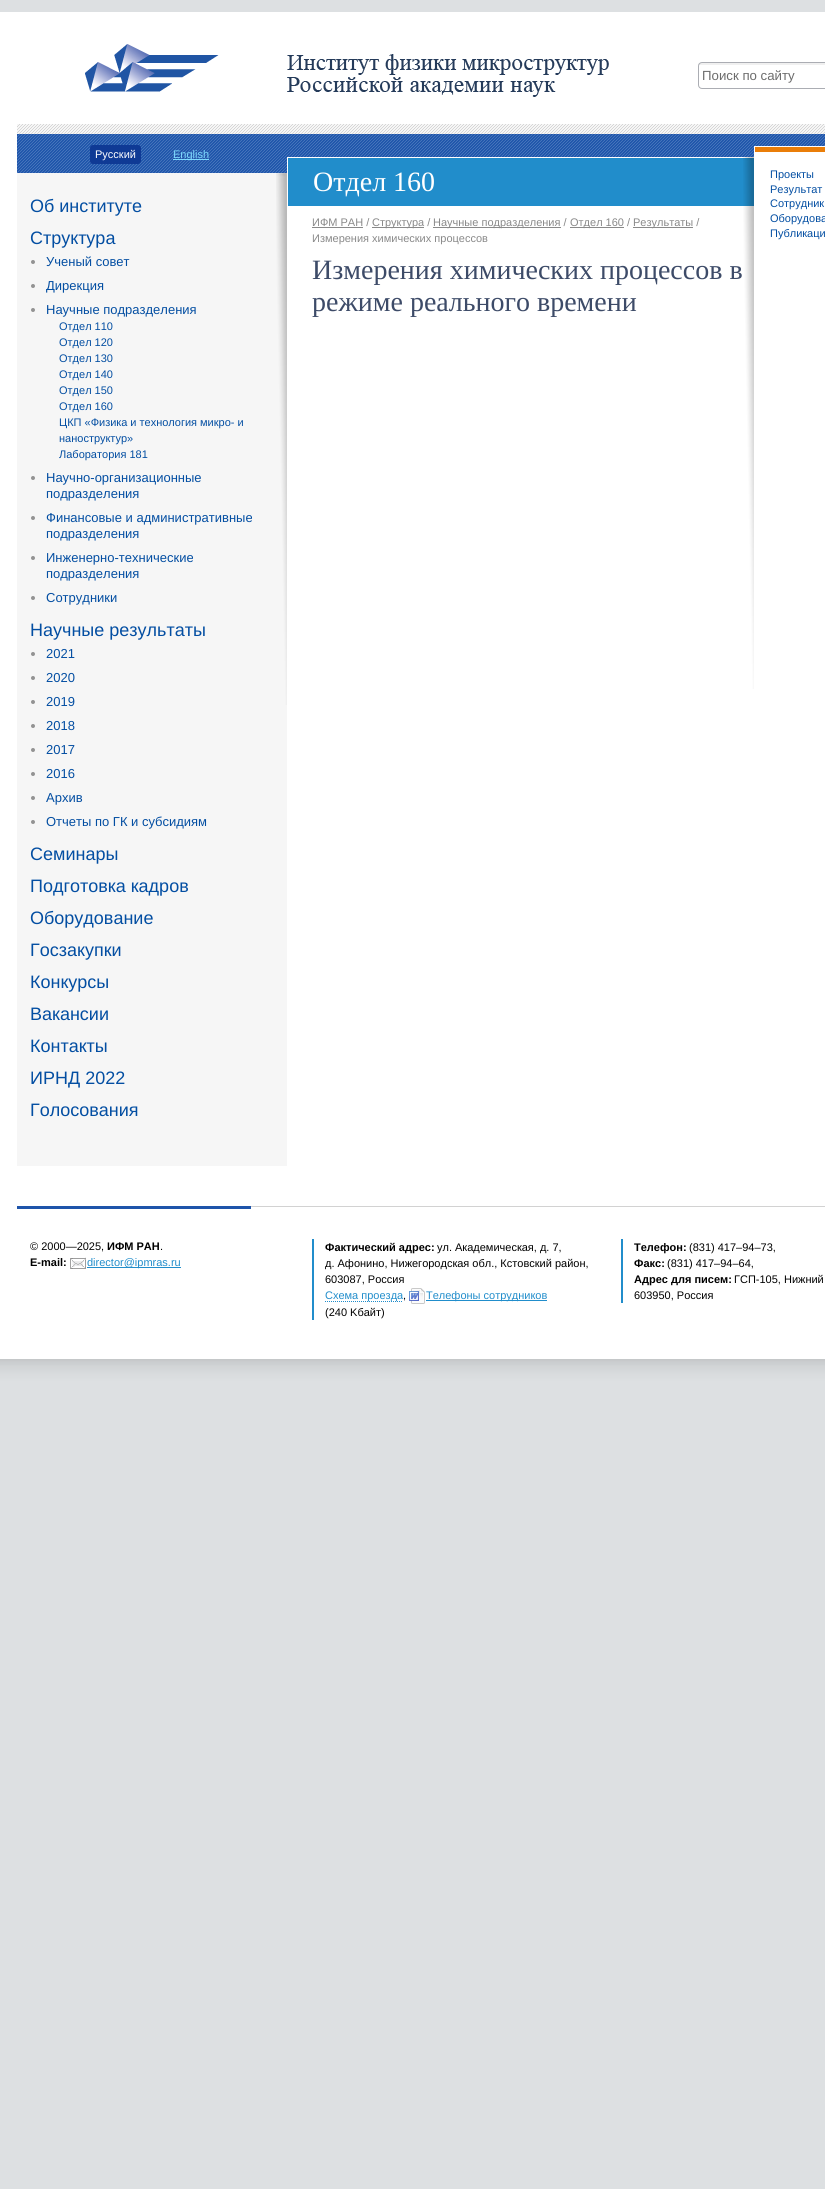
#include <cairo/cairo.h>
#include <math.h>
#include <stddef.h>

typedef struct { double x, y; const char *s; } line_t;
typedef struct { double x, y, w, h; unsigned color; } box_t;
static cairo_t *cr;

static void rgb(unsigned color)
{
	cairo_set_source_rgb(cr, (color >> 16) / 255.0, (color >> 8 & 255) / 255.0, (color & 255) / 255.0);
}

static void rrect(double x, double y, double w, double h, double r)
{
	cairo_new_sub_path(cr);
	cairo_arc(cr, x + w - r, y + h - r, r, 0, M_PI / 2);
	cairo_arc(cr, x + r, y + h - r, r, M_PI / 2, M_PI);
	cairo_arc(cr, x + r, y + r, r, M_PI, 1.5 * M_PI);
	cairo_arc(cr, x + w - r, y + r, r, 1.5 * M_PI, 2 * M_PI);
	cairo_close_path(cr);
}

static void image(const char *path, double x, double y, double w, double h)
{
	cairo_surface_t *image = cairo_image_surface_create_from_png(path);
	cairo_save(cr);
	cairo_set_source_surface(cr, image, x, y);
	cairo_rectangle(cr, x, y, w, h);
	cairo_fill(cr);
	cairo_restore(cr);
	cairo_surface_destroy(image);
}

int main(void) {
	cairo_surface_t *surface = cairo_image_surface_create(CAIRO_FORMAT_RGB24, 825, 2189);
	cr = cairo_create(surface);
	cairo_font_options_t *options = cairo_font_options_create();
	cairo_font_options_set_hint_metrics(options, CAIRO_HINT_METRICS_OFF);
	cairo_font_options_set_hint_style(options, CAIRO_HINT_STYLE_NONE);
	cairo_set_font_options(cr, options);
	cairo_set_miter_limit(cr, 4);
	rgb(0xdde0e2);
	cairo_paint(cr);
	rgb(0xffffff);
	cairo_rectangle(cr, 0, 12, 825, 1347);
	cairo_fill(cr);
	image("img/1.png", 0, 1359, 825, 36);
	image("img/2.png", 85, 44, 134, 48);
	image("img/3.png", 287, 54, 322, 43);
	image("img/4.png", 698, 63, 127, 2);
	rrect(698.5, 62.5, 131, 26, 3.5);
	rgb(0xabadb3);
	cairo_set_line_width(cr, 1);
	cairo_stroke(cr);
	rgb(0xf6f6f6);
	cairo_rectangle(cr, 17, 124, 808, 10);
	cairo_fill(cr);
	image("img/5.png", 17, 124, 808, 10);
	rgb(0x1e54aa);
	cairo_rectangle(cr, 17, 134, 808, 39);
	cairo_fill(cr);
	image("img/6.png", 17, 134, 808, 39);
	rgb(0x0f3a95);
	rrect(90, 145, 51, 19, 3);
	cairo_fill(cr);
	rgb(0x7dd9ff);
	cairo_rectangle(cr, 173, 159, 36, 1);
	cairo_fill(cr);
	rgb(0xf6f6f6);
	cairo_rectangle(cr, 17, 173, 270, 993);
	cairo_fill(cr);
	rgb(0x939393);
	cairo_arc(cr, 33, 262, 2, 0, 2 * M_PI);
	cairo_fill(cr);
	cairo_arc(cr, 33, 286, 2, 0, 2 * M_PI);
	cairo_fill(cr);
	cairo_arc(cr, 33, 310, 2, 0, 2 * M_PI);
	cairo_fill(cr);
	cairo_arc(cr, 33, 478, 2, 0, 2 * M_PI);
	cairo_fill(cr);
	cairo_arc(cr, 33, 518, 2, 0, 2 * M_PI);
	cairo_fill(cr);
	cairo_arc(cr, 33, 558, 2, 0, 2 * M_PI);
	cairo_fill(cr);
	cairo_arc(cr, 33, 598, 2, 0, 2 * M_PI);
	cairo_fill(cr);
	cairo_arc(cr, 33, 654, 2, 0, 2 * M_PI);
	cairo_fill(cr);
	cairo_arc(cr, 33, 678, 2, 0, 2 * M_PI);
	cairo_fill(cr);
	cairo_arc(cr, 33, 702, 2, 0, 2 * M_PI);
	cairo_fill(cr);
	cairo_arc(cr, 33, 726, 2, 0, 2 * M_PI);
	cairo_fill(cr);
	cairo_arc(cr, 33, 750, 2, 0, 2 * M_PI);
	cairo_fill(cr);
	cairo_arc(cr, 33, 774, 2, 0, 2 * M_PI);
	cairo_fill(cr);
	cairo_arc(cr, 33, 798, 2, 0, 2 * M_PI);
	cairo_fill(cr);
	cairo_arc(cr, 33, 822, 2, 0, 2 * M_PI);
	cairo_fill(cr);
	image("img/7.png", 276, 173, 11, 532);
	{
		static const box_t items[] = {
			{287, 157, 538, 16, 0xffffff},
			{288, 158, 466, 48, 0x218dcb},
			{754, 153, 71, 4, 0xffffff},
		};
		for (size_t i = 0; i < sizeof items / sizeof *items; i++) {
			rgb(items[i].color);
			cairo_rectangle(cr, items[i].x, items[i].y, items[i].w, items[i].h);
			cairo_fill(cr);
		}
	}
	rgb(0xea7e09);
	cairo_rectangle(cr, 754.5, 146.5, 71, 6);
	cairo_fill_preserve(cr);
	rgb(0xffffff);
	cairo_stroke(cr);
	image("img/8.png", 743, 157, 11, 532);
	{
		static const box_t items[] = {
			{312, 227, 51, 1, 0x898989},
			{372, 227, 52, 1, 0x898989},
			{433, 227, 128, 1, 0x898989},
			{570, 227, 54, 1, 0x898989},
			{633, 227, 60, 1, 0x898989},
			{17, 1206, 234, 3, 0x1e54aa},
			{251, 1206, 574, 1, 0xd2d2d2},
		};
		for (size_t i = 0; i < sizeof items / sizeof *items; i++) {
			rgb(items[i].color);
			cairo_rectangle(cr, items[i].x, items[i].y, items[i].w, items[i].h);
			cairo_fill(cr);
		}
	}
	image("img/9.png", 70, 1257, 16, 12);
	rgb(0x218dcb);
	cairo_rectangle(cr, 87, 1267, 94, 1);
	cairo_fill(cr);
	cairo_rectangle(cr, 312, 1239, 2, 81);
	cairo_fill(cr);
	cairo_new_path(cr);
	cairo_move_to(cr, 325, 1301.5);
	cairo_line_to(cr, 403, 1301.5);
	cairo_set_dash(cr, (double[]){1, 1}, 2, 0);
	cairo_stroke(cr);
	image("img/10.png", 409, 1288, 16, 16);
	cairo_rectangle(cr, 426, 1300, 121, 1);
	cairo_fill(cr);
	cairo_rectangle(cr, 621, 1239, 2, 64);
	cairo_fill(cr);
	cairo_select_font_face(cr, "Liberation Sans", CAIRO_FONT_SLANT_NORMAL, CAIRO_FONT_WEIGHT_NORMAL);
	cairo_set_font_size(cr, 13.25);
	rgb(0x6c6c6c);
	cairo_move_to(cr, 702, 80);
	cairo_show_text(cr, "Поиск по сайту");
	cairo_set_font_size(cr, 11);
	rgb(0xffffff);
	cairo_move_to(cr, 95, 158);
	cairo_show_text(cr, "Русский");
	rgb(0x7dd9ff);
	cairo_move_to(cr, 173, 158);
	cairo_show_text(cr, "English");
	cairo_set_font_size(cr, 18);
	rgb(0x034ea2);
	cairo_move_to(cr, 30, 212);
	cairo_show_text(cr, "Об институте");
	cairo_move_to(cr, 30, 244);
	cairo_show_text(cr, "Структура");
	cairo_set_font_size(cr, 13);
	{
		static const line_t items[] = {
			{46, 266, "Ученый совет"},
			{46, 290, "Дирекция"},
			{46, 314, "Научные подразделения"},
		};
		for (size_t i = 0; i < sizeof items / sizeof *items; i++) {
			cairo_move_to(cr, items[i].x, items[i].y);
			cairo_show_text(cr, items[i].s);
		}
	}
	cairo_set_font_size(cr, 11);
	{
		static const line_t items[] = {
			{59, 330, "Отдел 110"},
			{59, 346, "Отдел 120"},
			{59, 362, "Отдел 130"},
			{59, 378, "Отдел 140"},
			{59, 394, "Отдел 150"},
			{59, 410, "Отдел 160"},
			{59, 426, "ЦКП «Физика и технология микро- и"},
			{59, 442, "наноструктур»"},
			{59, 458, "Лаборатория 181"},
		};
		for (size_t i = 0; i < sizeof items / sizeof *items; i++) {
			cairo_move_to(cr, items[i].x, items[i].y);
			cairo_show_text(cr, items[i].s);
		}
	}
	cairo_set_font_size(cr, 13);
	{
		static const line_t items[] = {
			{46, 482, "Научно-организационные"},
			{46, 498, "подразделения"},
			{46, 522, "Финансовые и административные"},
			{46, 538, "подразделения"},
			{46, 562, "Инженерно-технические"},
			{46, 578, "подразделения"},
			{46, 602, "Сотрудники"},
		};
		for (size_t i = 0; i < sizeof items / sizeof *items; i++) {
			cairo_move_to(cr, items[i].x, items[i].y);
			cairo_show_text(cr, items[i].s);
		}
	}
	cairo_set_font_size(cr, 18);
	cairo_move_to(cr, 30, 636);
	cairo_show_text(cr, "Научные результаты");
	cairo_set_font_size(cr, 13);
	{
		static const line_t items[] = {
			{46, 658, "2021"},
			{46, 682, "2020"},
			{46, 706, "2019"},
			{46, 730, "2018"},
			{46, 754, "2017"},
			{46, 778, "2016"},
			{46, 802, "Архив"},
			{46, 826, "Отчеты по ГК и субсидиям"},
		};
		for (size_t i = 0; i < sizeof items / sizeof *items; i++) {
			cairo_move_to(cr, items[i].x, items[i].y);
			cairo_show_text(cr, items[i].s);
		}
	}
	cairo_set_font_size(cr, 18);
	{
		static const line_t items[] = {
			{30, 860, "Семинары"},
			{30, 892, "Подготовка кадров"},
			{30, 924, "Оборудование"},
			{30, 956, "Госзакупки"},
			{30, 988, "Конкурсы"},
			{30, 1020, "Вакансии"},
			{30, 1052, "Контакты"},
			{30, 1084, "ИРНД 2022"},
			{30, 1116, "Голосования"},
		};
		for (size_t i = 0; i < sizeof items / sizeof *items; i++) {
			cairo_move_to(cr, items[i].x, items[i].y);
			cairo_show_text(cr, items[i].s);
		}
	}
	cairo_select_font_face(cr, "Liberation Serif", CAIRO_FONT_SLANT_NORMAL, CAIRO_FONT_WEIGHT_NORMAL);
	cairo_set_font_size(cr, 28);
	rgb(0xffffff);
	cairo_move_to(cr, 313, 191);
	cairo_show_text(cr, "Отдел 160");
	cairo_select_font_face(cr, "Liberation Sans", CAIRO_FONT_SLANT_NORMAL, CAIRO_FONT_WEIGHT_NORMAL);
	cairo_set_font_size(cr, 11);
	rgb(0x034ea2);
	{
		static const line_t items[] = {
			{770, 178, "Проекты"},
			{770, 193, "Результат"},
			{770, 207, "Сотрудник"},
			{770, 222, "Оборудова"},
			{770, 237, "Публикаци"},
		};
		for (size_t i = 0; i < sizeof items / sizeof *items; i++) {
			cairo_move_to(cr, items[i].x, items[i].y);
			cairo_show_text(cr, items[i].s);
		}
	}
	rgb(0x898989);
	{
		static const line_t items[] = {
			{312, 226, "ИФМ РАН /"},
			{372, 226, "Структура /"},
			{433, 226, "Научные подразделения /"},
			{570, 226, "Отдел 160 /"},
			{633, 226, "Результаты /"},
			{312, 242, "Измерения химических процессов"},
		};
		for (size_t i = 0; i < sizeof items / sizeof *items; i++) {
			cairo_move_to(cr, items[i].x, items[i].y);
			cairo_show_text(cr, items[i].s);
		}
	}
	cairo_select_font_face(cr, "Liberation Serif", CAIRO_FONT_SLANT_NORMAL, CAIRO_FONT_WEIGHT_NORMAL);
	cairo_set_font_size(cr, 28);
	rgb(0x3d4b68);
	cairo_move_to(cr, 312, 279);
	cairo_show_text(cr, "Измерения химических процессов в");
	cairo_move_to(cr, 312, 311);
	cairo_show_text(cr, "режиме реального времени");
	cairo_select_font_face(cr, "Liberation Sans", CAIRO_FONT_SLANT_NORMAL, CAIRO_FONT_WEIGHT_NORMAL);
	cairo_set_font_size(cr, 11);
	rgb(0x000000);
	cairo_move_to(cr, 30, 1250);
	cairo_show_text(cr, "© 2000—2025,");
	cairo_select_font_face(cr, "Liberation Sans", CAIRO_FONT_SLANT_NORMAL, CAIRO_FONT_WEIGHT_BOLD);
	cairo_move_to(cr, 107, 1250);
	cairo_show_text(cr, "ИФМ РАН");
	cairo_select_font_face(cr, "Liberation Sans", CAIRO_FONT_SLANT_NORMAL, CAIRO_FONT_WEIGHT_NORMAL);
	cairo_move_to(cr, 160, 1250);
	cairo_show_text(cr, ".");
	cairo_select_font_face(cr, "Liberation Sans", CAIRO_FONT_SLANT_NORMAL, CAIRO_FONT_WEIGHT_BOLD);
	cairo_move_to(cr, 30, 1266);
	cairo_show_text(cr, "E-mail:");
	cairo_select_font_face(cr, "Liberation Sans", CAIRO_FONT_SLANT_NORMAL, CAIRO_FONT_WEIGHT_NORMAL);
	rgb(0x218dcb);
	cairo_move_to(cr, 87, 1266);
	cairo_show_text(cr, "director@ipmras.ru");
	cairo_select_font_face(cr, "Liberation Sans", CAIRO_FONT_SLANT_NORMAL, CAIRO_FONT_WEIGHT_BOLD);
	rgb(0x000000);
	cairo_move_to(cr, 325, 1251);
	cairo_show_text(cr, "Фактический адрес:");
	cairo_select_font_face(cr, "Liberation Sans", CAIRO_FONT_SLANT_NORMAL, CAIRO_FONT_WEIGHT_NORMAL);
	{
		static const line_t items[] = {
			{437, 1251, "ул. Академическая, д. 7,"},
			{325, 1267, "д. Афонино, Нижегородская обл., Кстовский район,"},
			{325, 1283, "603087, Россия"},
		};
		for (size_t i = 0; i < sizeof items / sizeof *items; i++) {
			cairo_move_to(cr, items[i].x, items[i].y);
			cairo_show_text(cr, items[i].s);
		}
	}
	rgb(0x218dcb);
	cairo_move_to(cr, 325, 1299);
	cairo_show_text(cr, "Схема проезда");
	rgb(0x000000);
	cairo_move_to(cr, 403, 1299);
	cairo_show_text(cr, ",");
	rgb(0x218dcb);
	cairo_move_to(cr, 426, 1299);
	cairo_show_text(cr, "Телефоны сотрудников");
	rgb(0x000000);
	cairo_move_to(cr, 325, 1316);
	cairo_show_text(cr, "(240 Kбайт)");
	cairo_select_font_face(cr, "Liberation Sans", CAIRO_FONT_SLANT_NORMAL, CAIRO_FONT_WEIGHT_BOLD);
	cairo_move_to(cr, 634, 1251);
	cairo_show_text(cr, "Tелефон:");
	cairo_select_font_face(cr, "Liberation Sans", CAIRO_FONT_SLANT_NORMAL, CAIRO_FONT_WEIGHT_NORMAL);
	cairo_move_to(cr, 689, 1251);
	cairo_show_text(cr, "(831) 417–94–73,");
	cairo_select_font_face(cr, "Liberation Sans", CAIRO_FONT_SLANT_NORMAL, CAIRO_FONT_WEIGHT_BOLD);
	cairo_move_to(cr, 634, 1267);
	cairo_show_text(cr, "Факс:");
	cairo_select_font_face(cr, "Liberation Sans", CAIRO_FONT_SLANT_NORMAL, CAIRO_FONT_WEIGHT_NORMAL);
	cairo_move_to(cr, 667, 1267);
	cairo_show_text(cr, "(831) 417–94–64,");
	cairo_select_font_face(cr, "Liberation Sans", CAIRO_FONT_SLANT_NORMAL, CAIRO_FONT_WEIGHT_BOLD);
	cairo_move_to(cr, 634, 1283);
	cairo_show_text(cr, "Адрес для писем:");
	cairo_select_font_face(cr, "Liberation Sans", CAIRO_FONT_SLANT_NORMAL, CAIRO_FONT_WEIGHT_NORMAL);
	cairo_move_to(cr, 734, 1283);
	cairo_show_text(cr, "ГСП-105, Нижний");
	cairo_move_to(cr, 634, 1299);
	cairo_show_text(cr, "603950, Россия");
	cairo_surface_write_to_png(surface, "page.png");
	cairo_font_options_destroy(options);
	cairo_destroy(cr);
	cairo_surface_destroy(surface);
	return 0;
}
